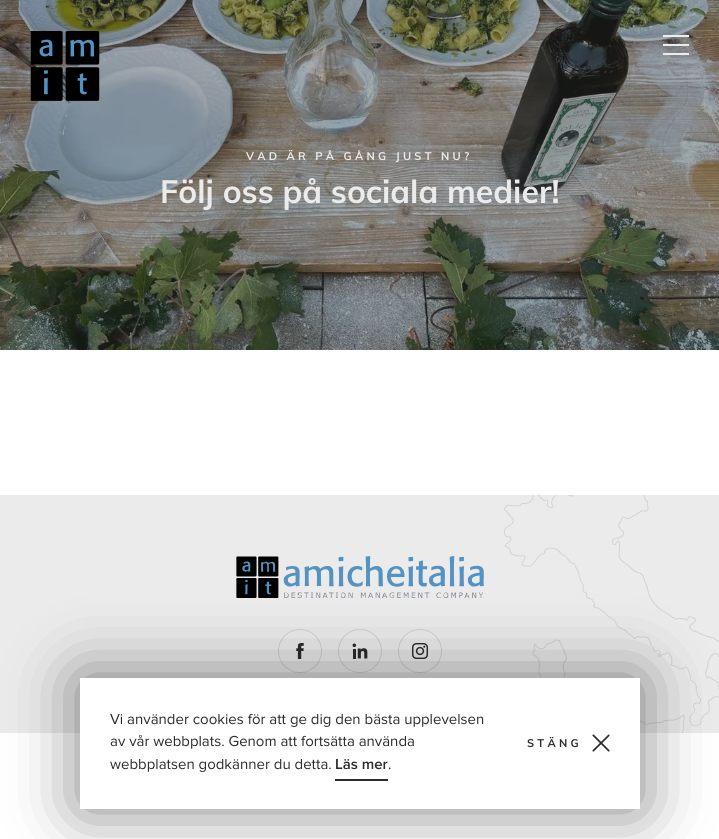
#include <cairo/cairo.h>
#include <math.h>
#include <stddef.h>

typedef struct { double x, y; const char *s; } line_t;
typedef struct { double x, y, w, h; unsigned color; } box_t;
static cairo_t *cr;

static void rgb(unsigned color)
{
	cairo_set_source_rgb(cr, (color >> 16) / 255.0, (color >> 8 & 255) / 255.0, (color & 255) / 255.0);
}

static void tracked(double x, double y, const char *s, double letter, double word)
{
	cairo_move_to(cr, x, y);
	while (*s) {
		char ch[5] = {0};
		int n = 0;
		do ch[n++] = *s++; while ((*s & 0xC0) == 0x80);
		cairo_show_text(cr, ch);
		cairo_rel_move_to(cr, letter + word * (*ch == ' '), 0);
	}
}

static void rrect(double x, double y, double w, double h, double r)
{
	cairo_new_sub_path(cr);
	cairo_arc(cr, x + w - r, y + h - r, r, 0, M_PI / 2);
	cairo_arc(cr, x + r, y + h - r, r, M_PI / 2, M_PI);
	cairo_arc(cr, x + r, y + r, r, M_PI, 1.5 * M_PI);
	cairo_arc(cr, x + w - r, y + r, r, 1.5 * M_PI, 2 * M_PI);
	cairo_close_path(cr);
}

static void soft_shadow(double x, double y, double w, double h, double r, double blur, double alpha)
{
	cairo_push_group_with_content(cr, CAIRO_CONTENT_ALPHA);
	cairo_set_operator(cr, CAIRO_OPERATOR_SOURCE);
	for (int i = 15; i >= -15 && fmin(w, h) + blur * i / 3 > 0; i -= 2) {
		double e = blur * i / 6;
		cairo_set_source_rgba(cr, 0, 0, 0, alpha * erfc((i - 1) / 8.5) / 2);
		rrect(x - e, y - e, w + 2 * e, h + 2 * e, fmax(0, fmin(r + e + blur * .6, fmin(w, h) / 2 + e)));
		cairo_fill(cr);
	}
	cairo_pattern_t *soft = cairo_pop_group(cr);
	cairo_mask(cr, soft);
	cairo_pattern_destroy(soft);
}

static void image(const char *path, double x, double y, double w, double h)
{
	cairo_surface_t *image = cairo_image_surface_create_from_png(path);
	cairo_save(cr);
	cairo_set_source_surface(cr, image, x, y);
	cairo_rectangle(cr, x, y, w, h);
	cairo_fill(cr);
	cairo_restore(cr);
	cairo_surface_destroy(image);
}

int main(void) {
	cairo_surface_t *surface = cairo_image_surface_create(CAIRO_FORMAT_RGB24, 719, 839);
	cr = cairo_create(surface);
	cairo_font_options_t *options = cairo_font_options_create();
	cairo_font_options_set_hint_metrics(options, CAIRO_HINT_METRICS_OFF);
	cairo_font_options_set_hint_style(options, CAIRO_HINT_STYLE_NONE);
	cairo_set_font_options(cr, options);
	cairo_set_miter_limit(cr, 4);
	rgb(0xffffff);
	cairo_paint(cr);
	image("img/2.png", 0, 0, 719, 350);
	image("img/1.png", 30, 31, 70, 70);
	{
		static const box_t items[] = {
			{663, 35, 26, 2, 0xebebeb},
			{663, 44, 26, 2, 0xebebeb},
			{663, 53, 26, 2, 0xebebeb},
			{0, 495, 719, 238, 0xebebeb},
		};
		for (size_t i = 0; i < sizeof items / sizeof *items; i++) {
			rgb(items[i].color);
			cairo_rectangle(cr, items[i].x, items[i].y, items[i].w, items[i].h);
			cairo_fill(cr);
		}
	}
	image("img/3.png", 236, 556, 248, 42);
	cairo_arc(cr, 300, 651, 21.5, 0, 2 * M_PI);
	rgb(0xd0d0d0);
	cairo_set_line_width(cr, 1);
	cairo_stroke(cr);
	image("img/4.png", 296, 643, 8, 16);
	cairo_arc(cr, 360, 651, 21.5, 0, 2 * M_PI);
	cairo_stroke(cr);
	image("img/5.png", 352, 643, 16, 16);
	cairo_arc(cr, 420, 651, 21.5, 0, 2 * M_PI);
	cairo_stroke(cr);
	image("img/6.png", 412, 643, 16, 16);
	image("img/7.png", 503, 495, 216, 238);
	rgb(0x000000);
	soft_shadow(80, 678, 560, 131, 0, 34, 0.5);
	rgb(0xffffff);
	cairo_rectangle(cr, 80, 678, 560, 131);
	cairo_fill(cr);
	rgb(0x2b2b2b);
	cairo_rectangle(cr, 335, 779, 53, 2);
	cairo_fill(cr);
	image("img/8.png", 592, 734, 18, 18);
	cairo_select_font_face(cr, "Muli", CAIRO_FONT_SLANT_NORMAL, CAIRO_FONT_WEIGHT_BOLD);
	cairo_set_font_size(cr, 11);
	rgb(0xebebeb);
	tracked(246, 160, "VAD ÄR PÅ GÅNG JUST NU?", 3.25, 0);
	cairo_set_font_size(cr, 32);
	cairo_move_to(cr, 160, 203);
	cairo_show_text(cr, "Följ oss på sociala medier!");
	cairo_select_font_face(cr, "Proxima Nova", CAIRO_FONT_SLANT_NORMAL, CAIRO_FONT_WEIGHT_NORMAL);
	cairo_set_font_size(cr, 15);
	rgb(0x2b2b2b);
	{
		static const line_t items[] = {
			{110, 724, "Vi använder cookies för att ge dig den bästa upplevelsen"},
			{110, 746, "av vår webbplats. Genom att fortsätta använda"},
			{110, 769, "webbplatsen godkänner du detta."},
		};
		for (size_t i = 0; i < sizeof items / sizeof *items; i++) {
			cairo_move_to(cr, items[i].x, items[i].y);
			cairo_show_text(cr, items[i].s);
		}
	}
	cairo_select_font_face(cr, "Proxima Nova SemiBold", CAIRO_FONT_SLANT_NORMAL, CAIRO_FONT_WEIGHT_NORMAL);
	cairo_move_to(cr, 335, 769);
	cairo_show_text(cr, "Läs mer");
	cairo_select_font_face(cr, "Proxima Nova", CAIRO_FONT_SLANT_NORMAL, CAIRO_FONT_WEIGHT_NORMAL);
	cairo_move_to(cr, 388, 769);
	cairo_show_text(cr, ".");
	cairo_select_font_face(cr, "Muli", CAIRO_FONT_SLANT_NORMAL, CAIRO_FONT_WEIGHT_BOLD);
	cairo_set_font_size(cr, 11);
	tracked(527, 747, "STÄNG", 3.25, 0);
	cairo_surface_write_to_png(surface, "page.png");
	cairo_font_options_destroy(options);
	cairo_destroy(cr);
	cairo_surface_destroy(surface);
	return 0;
}
